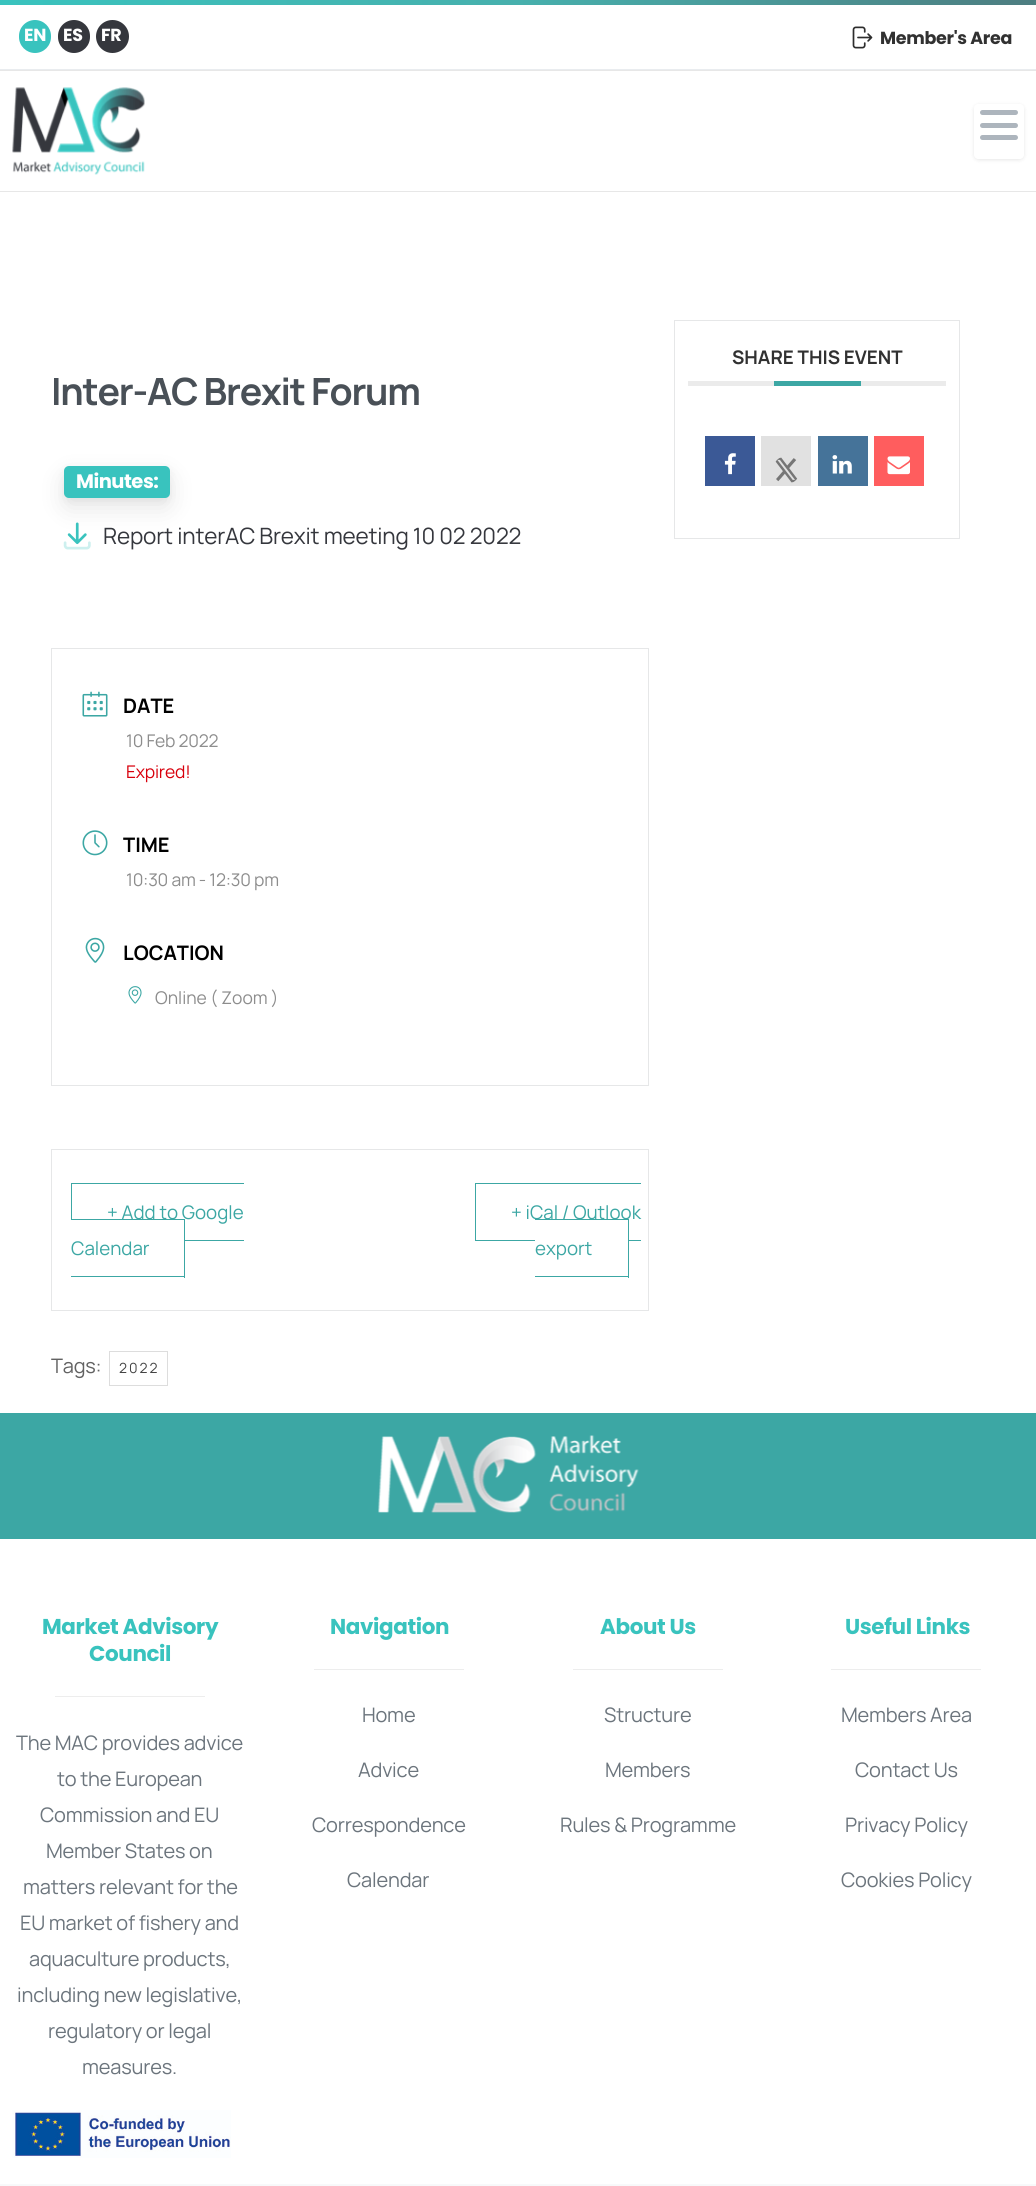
#include <cairo/cairo.h>
#include <math.h>
#include <stddef.h>

typedef struct { double x, y; const char *s; } line_t;
typedef struct { double x, y, w, h; unsigned color; } box_t;
static cairo_t *cr;

static void rgb(unsigned color)
{
	cairo_set_source_rgb(cr, (color >> 16) / 255.0, (color >> 8 & 255) / 255.0, (color & 255) / 255.0);
}

static void tracked(double x, double y, const char *s, double letter, double word)
{
	cairo_move_to(cr, x, y);
	while (*s) {
		char ch[5] = {0};
		int n = 0;
		do ch[n++] = *s++; while ((*s & 0xC0) == 0x80);
		cairo_show_text(cr, ch);
		cairo_rel_move_to(cr, letter + word * (*ch == ' '), 0);
	}
}

static void rrect(double x, double y, double w, double h, double r)
{
	cairo_new_sub_path(cr);
	cairo_arc(cr, x + w - r, y + h - r, r, 0, M_PI / 2);
	cairo_arc(cr, x + r, y + h - r, r, M_PI / 2, M_PI);
	cairo_arc(cr, x + r, y + r, r, M_PI, 1.5 * M_PI);
	cairo_arc(cr, x + w - r, y + r, r, 1.5 * M_PI, 2 * M_PI);
	cairo_close_path(cr);
}

static void soft_shadow(double x, double y, double w, double h, double r, double blur, double alpha)
{
	cairo_push_group_with_content(cr, CAIRO_CONTENT_ALPHA);
	cairo_set_operator(cr, CAIRO_OPERATOR_SOURCE);
	for (int i = 15; i >= -15 && fmin(w, h) + blur * i / 3 > 0; i -= 2) {
		double e = blur * i / 6;
		cairo_set_source_rgba(cr, 0, 0, 0, alpha * erfc((i - 1) / 8.5) / 2);
		rrect(x - e, y - e, w + 2 * e, h + 2 * e, fmax(0, fmin(r + e + blur * .6, fmin(w, h) / 2 + e)));
		cairo_fill(cr);
	}
	cairo_pattern_t *soft = cairo_pop_group(cr);
	cairo_mask(cr, soft);
	cairo_pattern_destroy(soft);
}

static void image(const char *path, double x, double y, double w, double h)
{
	cairo_surface_t *image = cairo_image_surface_create_from_png(path);
	cairo_save(cr);
	cairo_set_source_surface(cr, image, x, y);
	cairo_rectangle(cr, x, y, w, h);
	cairo_fill(cr);
	cairo_restore(cr);
	cairo_surface_destroy(image);
}

int main(void) {
	cairo_surface_t *surface = cairo_image_surface_create(CAIRO_FORMAT_RGB24, 1036, 2186);
	cr = cairo_create(surface);
	cairo_font_options_t *options = cairo_font_options_create();
	cairo_font_options_set_hint_metrics(options, CAIRO_HINT_METRICS_OFF);
	cairo_font_options_set_hint_style(options, CAIRO_HINT_STYLE_NONE);
	cairo_set_font_options(cr, options);
	cairo_set_miter_limit(cr, 4);
	cairo_pattern_t *gradient;
	rgb(0xffffff);
	cairo_paint(cr);
	gradient = cairo_pattern_create_linear(0, 2.5, 1036, 2.5);
	cairo_pattern_add_color_stop_rgba(gradient, 0, 0.224, 0.765, 0.745, 1);
	cairo_pattern_add_color_stop_rgba(gradient, 0.5, 0.278, 0.69, 0.678, 1);
	cairo_pattern_add_color_stop_rgba(gradient, 1, 0.302, 0.49, 0.502, 1);
	cairo_set_source(cr, gradient);
	cairo_pattern_destroy(gradient);
	cairo_rectangle(cr, 0, 0, 1036, 5);
	cairo_fill(cr);
	rgb(0x39c3be);
	rrect(19, 20, 32, 33, 16);
	cairo_fill(cr);
	rgb(0x35373d);
	rrect(58, 20, 32, 33, 16);
	cairo_fill(cr);
	cairo_arc(cr, 112.5, 36.5, 16.5, 0, 2 * M_PI);
	cairo_fill(cr);
	image("img/1.png", 852, 26, 21, 23);
	{
		static const box_t items[] = {
			{0, 69, 1036, 1, 0xe9ecef},
			{0, 70, 1036, 1, 0xe7e7e7},
			{0, 191, 1036, 1, 0xe7e7e7},
		};
		for (size_t i = 0; i < sizeof items / sizeof *items; i++) {
			rgb(items[i].color);
			cairo_rectangle(cr, items[i].x, items[i].y, items[i].w, items[i].h);
			cairo_fill(cr);
		}
	}
	image("img/2.png", 12, 87, 133, 88);
	cairo_save(cr);
	cairo_set_fill_rule(cr, CAIRO_FILL_RULE_EVEN_ODD);
	cairo_new_path(cr);
	cairo_move_to(cr, 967, 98);
	cairo_line_to(cr, 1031, 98);
	cairo_line_to(cr, 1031, 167);
	cairo_line_to(cr, 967, 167);
	cairo_close_path(cr);
	cairo_move_to(cr, 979, 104);
	cairo_line_to(cr, 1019, 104);
	cairo_curve_to(cr, 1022, 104, 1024, 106, 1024, 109);
	cairo_line_to(cr, 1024, 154);
	cairo_curve_to(cr, 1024, 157, 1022, 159, 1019, 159);
	cairo_line_to(cr, 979, 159);
	cairo_curve_to(cr, 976, 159, 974, 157, 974, 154);
	cairo_line_to(cr, 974, 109);
	cairo_curve_to(cr, 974, 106, 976, 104, 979, 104);
	cairo_close_path(cr);
	cairo_clip(cr);
	rgb(0x000000);
	soft_shadow(974, 105, 50, 55, 5, 2, 0.1);
	cairo_restore(cr);
	rgb(0xadb5bd);
	rrect(980, 110, 38, 5, 2.5);
	cairo_fill(cr);
	rrect(980, 123, 38, 5, 2.5);
	cairo_fill(cr);
	rrect(980, 135, 38, 5, 2.5);
	cairo_fill(cr);
	cairo_rectangle(cr, 674.5, 320.5, 285, 218);
	rgb(0xe6e7e8);
	cairo_set_line_width(cr, 1);
	cairo_stroke(cr);
	{
		static const box_t items[] = {
			{688, 381, 258, 5, 0xebebeb},
			{774, 381, 87, 5, 0x3ca7a4},
			{705, 436, 50, 50, 0x3b5996},
		};
		for (size_t i = 0; i < sizeof items / sizeof *items; i++) {
			rgb(items[i].color);
			cairo_rectangle(cr, items[i].x, items[i].y, items[i].w, items[i].h);
			cairo_fill(cr);
		}
	}
	image("img/3.png", 724, 453, 12, 22);
	rgb(0xe1e1e1);
	cairo_rectangle(cr, 761, 436, 50, 50);
	cairo_fill(cr);
	image("img/4.png", 775, 457, 23, 26);
	rgb(0x457399);
	cairo_rectangle(cr, 818, 436, 50, 50);
	cairo_fill(cr);
	image("img/5.png", 832, 455, 20, 19);
	rgb(0xff5d5e);
	cairo_rectangle(cr, 874, 436, 50, 50);
	cairo_fill(cr);
	image("img/6.png", 887, 456, 23, 19);
	rgb(0x000000);
	soft_shadow(64, 476, 106, 32, 5, 12, 0.1);
	soft_shadow(64, 469, 106, 31, 5, 4, 0.05);
	rgb(0x39c3be);
	rrect(64, 466, 106, 32, 5);
	cairo_fill(cr);
	image("img/7.png", 63, 522, 28, 28);
	cairo_rectangle(cr, 51.5, 648.5, 597, 437);
	rgb(0xe6e7e8);
	cairo_stroke(cr);
	image("img/8.png", 82, 691, 26, 26);
	image("img/9.png", 82, 830, 26, 26);
	image("img/10.png", 85, 937, 20, 26);
	image("img/11.png", 128, 986, 14, 18);
	cairo_rectangle(cr, 51.5, 1149.5, 597, 161);
	cairo_stroke(cr);
	{
		static const box_t items[] = {
			{71, 1183, 173, 1, 0x3ca7a4},
			{185, 1240, 59, 1, 0x3ca7a4},
			{71, 1183, 1, 36, 0x3ca7a4},
			{71, 1219, 114, 1, 0x3ca7a4},
			{184, 1219, 1, 59, 0x3ca7a4},
			{71, 1276, 114, 1, 0x3ca7a4},
			{475, 1183, 166, 1, 0x3ca7a4},
			{475, 1240, 166, 1, 0x3ca7a4},
			{475, 1183, 1, 58, 0x3ca7a4},
			{535, 1219, 94, 1, 0x3ca7a4},
			{535, 1240, 93, 1, 0xffffff},
			{628, 1219, 1, 59, 0x3ca7a4},
			{535, 1276, 94, 1, 0x3ca7a4},
		};
		for (size_t i = 0; i < sizeof items / sizeof *items; i++) {
			rgb(items[i].color);
			cairo_rectangle(cr, items[i].x, items[i].y, items[i].w, items[i].h);
			cairo_fill(cr);
		}
	}
	cairo_rectangle(cr, 109.5, 1351.5, 58, 34);
	rgb(0xdddddd);
	cairo_stroke(cr);
	rgb(0x3ca7a4);
	cairo_rectangle(cr, 0, 1413, 1036, 126);
	cairo_fill(cr);
	image("img/12.png", 378, 1435, 261, 78);
	rgb(0xededed);
	cairo_rectangle(cr, 55, 1696, 150, 1);
	cairo_fill(cr);
	image("img/13.png", 12, 2110, 219, 48);
	{
		static const box_t items[] = {
			{314, 1669, 150, 1, 0xededed},
			{573, 1669, 150, 1, 0xededed},
			{831, 1669, 150, 1, 0xededed},
			{0, 2184, 1036, 2, 0xf8f9fa},
		};
		for (size_t i = 0; i < sizeof items / sizeof *items; i++) {
			rgb(items[i].color);
			cairo_rectangle(cr, items[i].x, items[i].y, items[i].w, items[i].h);
			cairo_fill(cr);
		}
	}
	cairo_select_font_face(cr, "Poppins", CAIRO_FONT_SLANT_NORMAL, CAIRO_FONT_WEIGHT_BOLD);
	cairo_set_font_size(cr, 17.5);
	rgb(0xffffff);
	{
		static const line_t items[] = {
			{24, 41, "EN"},
			{63, 41, "ES"},
			{101, 41, "FR"},
		};
		for (size_t i = 0; i < sizeof items / sizeof *items; i++) {
			tracked(items[i].x, items[i].y, items[i].s, -0.3, 0);
		}
	}
	rgb(0x313131);
	tracked(880, 44, "Member's Area", -0.3, 0);
	cairo_select_font_face(cr, "Manrope", CAIRO_FONT_SLANT_NORMAL, CAIRO_FONT_WEIGHT_BOLD);
	cairo_set_font_size(cr, 18.75);
	cairo_move_to(cr, 732, 364);
	cairo_show_text(cr, "SHARE THIS EVENT");
	cairo_set_font_size(cr, 37.5);
	rgb(0x495057);
	tracked(51, 405, "Inter-AC Brexit Forum", -1.25, 0);
	cairo_select_font_face(cr, "Poppins", CAIRO_FONT_SLANT_NORMAL, CAIRO_FONT_WEIGHT_BOLD);
	cairo_set_font_size(cr, 19.5);
	rgb(0xffffff);
	tracked(76, 488, "Minutes:", -0.5, 0);
	cairo_select_font_face(cr, "Manrope", CAIRO_FONT_SLANT_NORMAL, CAIRO_FONT_WEIGHT_NORMAL);
	cairo_set_font_size(cr, 22.5);
	rgb(0x35373d);
	tracked(103, 544, "Report interAC Brexit meeting 10 02 2022", -0.2, 0);
	cairo_select_font_face(cr, "Manrope", CAIRO_FONT_SLANT_NORMAL, CAIRO_FONT_WEIGHT_BOLD);
	cairo_set_font_size(cr, 20);
	rgb(0x000000);
	cairo_move_to(cr, 123, 713);
	cairo_show_text(cr, "DATE");
	cairo_select_font_face(cr, "Manrope", CAIRO_FONT_SLANT_NORMAL, CAIRO_FONT_WEIGHT_NORMAL);
	cairo_set_font_size(cr, 17.5);
	rgb(0x8d8d8d);
	tracked(126, 747, "10 Feb 2022", -0.2, 0);
	rgb(0xd8000c);
	tracked(126, 778, "Expired!", -0.2, 0);
	cairo_select_font_face(cr, "Manrope", CAIRO_FONT_SLANT_NORMAL, CAIRO_FONT_WEIGHT_BOLD);
	cairo_set_font_size(cr, 20);
	rgb(0x000000);
	cairo_move_to(cr, 123, 852);
	cairo_show_text(cr, "TIME");
	cairo_select_font_face(cr, "Manrope", CAIRO_FONT_SLANT_NORMAL, CAIRO_FONT_WEIGHT_NORMAL);
	cairo_set_font_size(cr, 17.5);
	rgb(0x8d8d8d);
	tracked(126, 886, "10:30 am - 12:30 pm", -0.2, 0);
	cairo_select_font_face(cr, "Manrope", CAIRO_FONT_SLANT_NORMAL, CAIRO_FONT_WEIGHT_BOLD);
	cairo_set_font_size(cr, 20);
	rgb(0x000000);
	cairo_move_to(cr, 123, 960);
	cairo_show_text(cr, "LOCATION");
	cairo_select_font_face(cr, "Manrope", CAIRO_FONT_SLANT_NORMAL, CAIRO_FONT_WEIGHT_NORMAL);
	cairo_set_font_size(cr, 17.5);
	rgb(0x8d8d8d);
	cairo_move_to(cr, 155, 1004);
	cairo_show_text(cr, "Online ( Zoom )");
	cairo_set_font_size(cr, 18.75);
	rgb(0x3ca7a4);
	{
		static const line_t items[] = {
			{107, 1219, "+ Add to Google"},
			{71, 1255, "Calendar"},
			{511, 1219, "+ iCal / Outlook"},
			{535, 1255, "export"},
		};
		for (size_t i = 0; i < sizeof items / sizeof *items; i++) {
			cairo_move_to(cr, items[i].x, items[i].y);
			cairo_show_text(cr, items[i].s);
		}
	}
	cairo_set_font_size(cr, 20);
	rgb(0x626262);
	tracked(51, 1373, "Tags:", -0.2, 0);
	cairo_set_font_size(cr, 14);
	rgb(0x444444);
	tracked(119, 1373, "2022", 2, 0);
	cairo_select_font_face(cr, "Poppins", CAIRO_FONT_SLANT_NORMAL, CAIRO_FONT_WEIGHT_BOLD);
	cairo_set_font_size(cr, 21.5);
	rgb(0x39c3be);
	tracked(42, 1634, "Market Advisory", -0.4, 0);
	tracked(89, 1661, "Council", -0.4, 0);
	cairo_select_font_face(cr, "Manrope", CAIRO_FONT_SLANT_NORMAL, CAIRO_FONT_WEIGHT_NORMAL);
	cairo_set_font_size(cr, 20);
	rgb(0x6c757d);
	{
		static const line_t items[] = {
			{16, 1750, "The MAC provides advice"},
			{57, 1786, "to the European"},
			{40, 1822, "Commission and EU"},
			{46, 1858, "Member States on"},
			{23, 1894, "matters relevant for the"},
			{20, 1930, "EU market of fishery and"},
			{29, 1966, "aquaculture products,"},
			{17, 2002, "including new legislative,"},
			{48, 2038, "regulatory or legal"},
			{82, 2074, "measures."},
		};
		for (size_t i = 0; i < sizeof items / sizeof *items; i++) {
			tracked(items[i].x, items[i].y, items[i].s, -0.2, 0);
		}
	}
	cairo_select_font_face(cr, "Poppins", CAIRO_FONT_SLANT_NORMAL, CAIRO_FONT_WEIGHT_BOLD);
	cairo_set_font_size(cr, 21.5);
	rgb(0x39c3be);
	tracked(330, 1634, "Navigation", -0.4, 0);
	cairo_select_font_face(cr, "Manrope", CAIRO_FONT_SLANT_NORMAL, CAIRO_FONT_WEIGHT_NORMAL);
	cairo_set_font_size(cr, 20);
	rgb(0x6c757d);
	{
		static const line_t items[] = {
			{362, 1722, "Home"},
			{358, 1777, "Advice"},
			{312, 1832, "Correspondence"},
			{347, 1887, "Calendar"},
		};
		for (size_t i = 0; i < sizeof items / sizeof *items; i++) {
			tracked(items[i].x, items[i].y, items[i].s, -0.2, 0);
		}
	}
	cairo_select_font_face(cr, "Poppins", CAIRO_FONT_SLANT_NORMAL, CAIRO_FONT_WEIGHT_BOLD);
	cairo_set_font_size(cr, 21.5);
	rgb(0x39c3be);
	tracked(600, 1634, "About Us", -0.4, 0);
	cairo_select_font_face(cr, "Manrope", CAIRO_FONT_SLANT_NORMAL, CAIRO_FONT_WEIGHT_NORMAL);
	cairo_set_font_size(cr, 20);
	rgb(0x6c757d);
	{
		static const line_t items[] = {
			{604, 1722, "Structure"},
			{605, 1777, "Members"},
			{560, 1832, "Rules & Programme"},
		};
		for (size_t i = 0; i < sizeof items / sizeof *items; i++) {
			tracked(items[i].x, items[i].y, items[i].s, -0.2, 0);
		}
	}
	cairo_select_font_face(cr, "Poppins", CAIRO_FONT_SLANT_NORMAL, CAIRO_FONT_WEIGHT_BOLD);
	cairo_set_font_size(cr, 21.5);
	rgb(0x39c3be);
	tracked(845, 1634, "Useful Links", -0.4, 0);
	cairo_select_font_face(cr, "Manrope", CAIRO_FONT_SLANT_NORMAL, CAIRO_FONT_WEIGHT_NORMAL);
	cairo_set_font_size(cr, 20);
	rgb(0x6c757d);
	{
		static const line_t items[] = {
			{841, 1722, "Members Area"},
			{855, 1777, "Contact Us"},
			{845, 1832, "Privacy Policy"},
			{841, 1887, "Cookies Policy"},
		};
		for (size_t i = 0; i < sizeof items / sizeof *items; i++) {
			tracked(items[i].x, items[i].y, items[i].s, -0.2, 0);
		}
	}
	cairo_surface_write_to_png(surface, "page.png");
	cairo_font_options_destroy(options);
	cairo_destroy(cr);
	cairo_surface_destroy(surface);
	return 0;
}
